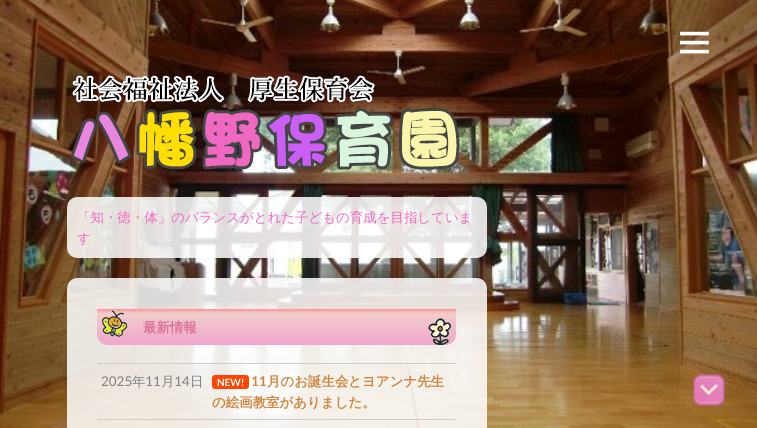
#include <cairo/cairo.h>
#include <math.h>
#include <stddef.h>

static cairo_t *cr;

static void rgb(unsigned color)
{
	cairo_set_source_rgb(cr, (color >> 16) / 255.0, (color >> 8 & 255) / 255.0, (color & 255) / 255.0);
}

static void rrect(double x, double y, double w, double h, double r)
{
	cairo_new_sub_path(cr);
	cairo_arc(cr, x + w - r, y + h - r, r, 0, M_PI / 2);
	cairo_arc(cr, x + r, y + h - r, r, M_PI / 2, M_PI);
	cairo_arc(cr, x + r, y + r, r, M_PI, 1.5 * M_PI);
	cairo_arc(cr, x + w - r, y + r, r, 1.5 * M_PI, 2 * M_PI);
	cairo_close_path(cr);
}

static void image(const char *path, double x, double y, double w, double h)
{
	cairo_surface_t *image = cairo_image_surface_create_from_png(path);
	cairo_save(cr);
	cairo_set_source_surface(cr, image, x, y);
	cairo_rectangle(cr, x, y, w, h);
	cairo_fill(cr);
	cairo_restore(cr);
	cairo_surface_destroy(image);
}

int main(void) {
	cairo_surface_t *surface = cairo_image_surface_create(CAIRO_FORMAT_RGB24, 757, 428);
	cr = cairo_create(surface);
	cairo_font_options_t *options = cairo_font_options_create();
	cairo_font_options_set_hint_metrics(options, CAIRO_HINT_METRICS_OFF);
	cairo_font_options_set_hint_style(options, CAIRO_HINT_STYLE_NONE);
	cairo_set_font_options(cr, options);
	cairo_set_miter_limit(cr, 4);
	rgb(0xffffff);
	cairo_paint(cr);
	image("img/2.png", 0, 0, 757, 428);
	image("img/1.png", 680, 31, 29, 23);
	image("img/3.png", 72, 75, 303, 28);
	image("img/4.png", 71, 108, 389, 62);
	image("img/5.png", 67, 197, 420, 61);
	image("img/6.png", 67, 278, 420, 150);
	image("img/7.png", 97, 309, 359, 36);
	rgb(0xcccccc);
	cairo_rectangle(cr, 97, 363, 359, 1);
	cairo_fill(cr);
	rgb(0xff4500);
	rrect(212, 375, 37, 14, 3);
	cairo_fill(cr);
	rgb(0xcccccc);
	cairo_rectangle(cr, 97, 419, 359, 1);
	cairo_fill(cr);
	image("img/8.png", 693, 374, 32, 32);
	cairo_select_font_face(cr, "WenQuanYi Zen Hei Medium", CAIRO_FONT_SLANT_NORMAL, CAIRO_FONT_WEIGHT_NORMAL);
	cairo_set_font_size(cr, 13.45);
	rgb(0xef68c1);
	cairo_move_to(cr, 77, 222);
	cairo_show_text(cr, "「知・徳・体」のバランスがとれた子どもの育成を目指していま");
	cairo_move_to(cr, 77, 243);
	cairo_show_text(cr, "す");
	cairo_select_font_face(cr, "WenQuanYi Zen Hei", CAIRO_FONT_SLANT_NORMAL, CAIRO_FONT_WEIGHT_BOLD);
	rgb(0xdb7093);
	cairo_move_to(cr, 143, 332);
	cairo_show_text(cr, "最新情報");
	cairo_select_font_face(cr, "Lato", CAIRO_FONT_SLANT_NORMAL, CAIRO_FONT_WEIGHT_NORMAL);
	rgb(0x808080);
	cairo_move_to(cr, 101, 386);
	cairo_show_text(cr, "2025");
	cairo_select_font_face(cr, "WenQuanYi Zen Hei Medium", CAIRO_FONT_SLANT_NORMAL, CAIRO_FONT_WEIGHT_NORMAL);
	cairo_move_to(cr, 132, 386);
	cairo_show_text(cr, "年");
	cairo_select_font_face(cr, "Lato", CAIRO_FONT_SLANT_NORMAL, CAIRO_FONT_WEIGHT_NORMAL);
	cairo_move_to(cr, 145, 386);
	cairo_show_text(cr, "11");
	cairo_select_font_face(cr, "WenQuanYi Zen Hei Medium", CAIRO_FONT_SLANT_NORMAL, CAIRO_FONT_WEIGHT_NORMAL);
	cairo_move_to(cr, 161, 386);
	cairo_show_text(cr, "月");
	cairo_select_font_face(cr, "Lato", CAIRO_FONT_SLANT_NORMAL, CAIRO_FONT_WEIGHT_NORMAL);
	cairo_move_to(cr, 174, 386);
	cairo_show_text(cr, "14");
	cairo_select_font_face(cr, "WenQuanYi Zen Hei Medium", CAIRO_FONT_SLANT_NORMAL, CAIRO_FONT_WEIGHT_NORMAL);
	cairo_move_to(cr, 190, 386);
	cairo_show_text(cr, "日");
	cairo_select_font_face(cr, "Lato", CAIRO_FONT_SLANT_NORMAL, CAIRO_FONT_WEIGHT_BOLD);
	cairo_set_font_size(cr, 10);
	rgb(0xffffff);
	cairo_move_to(cr, 217, 386);
	cairo_show_text(cr, "NEW!");
	cairo_set_font_size(cr, 13.45);
	rgb(0xcd853f);
	cairo_move_to(cr, 251, 386);
	cairo_show_text(cr, "11");
	cairo_select_font_face(cr, "WenQuanYi Zen Hei", CAIRO_FONT_SLANT_NORMAL, CAIRO_FONT_WEIGHT_BOLD);
	cairo_move_to(cr, 267, 386);
	cairo_show_text(cr, "月のお誕生会とヨアンナ先生");
	cairo_move_to(cr, 212, 407);
	cairo_show_text(cr, "の絵画教室がありました。");
	cairo_surface_write_to_png(surface, "page.png");
	cairo_font_options_destroy(options);
	cairo_destroy(cr);
	cairo_surface_destroy(surface);
	return 0;
}
